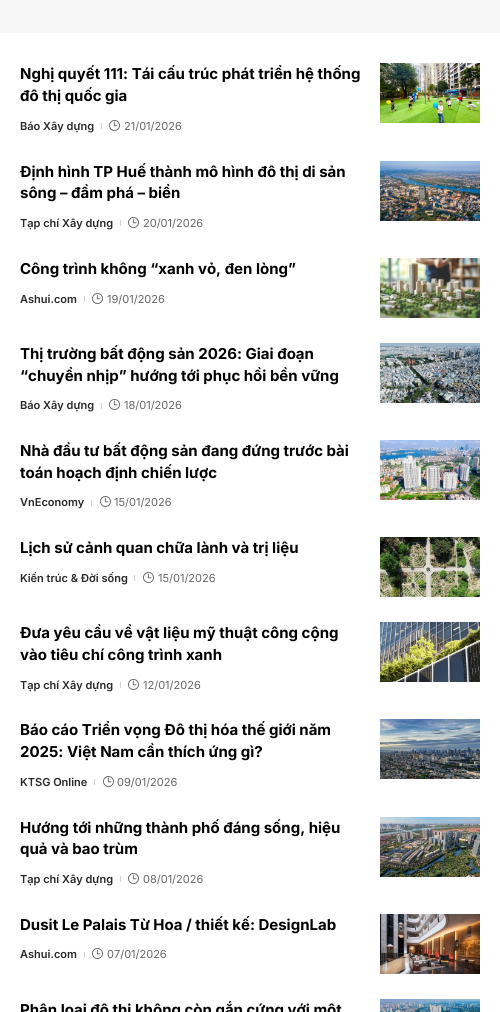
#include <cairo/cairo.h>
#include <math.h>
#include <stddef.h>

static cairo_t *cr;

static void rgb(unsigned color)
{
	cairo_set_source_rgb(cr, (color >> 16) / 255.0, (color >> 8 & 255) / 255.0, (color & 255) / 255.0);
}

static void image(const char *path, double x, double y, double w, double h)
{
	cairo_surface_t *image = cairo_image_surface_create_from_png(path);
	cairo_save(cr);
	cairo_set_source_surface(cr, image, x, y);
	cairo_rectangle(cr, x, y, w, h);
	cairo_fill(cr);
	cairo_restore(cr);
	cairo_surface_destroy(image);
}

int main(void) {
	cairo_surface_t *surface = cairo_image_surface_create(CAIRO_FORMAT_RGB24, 500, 1012);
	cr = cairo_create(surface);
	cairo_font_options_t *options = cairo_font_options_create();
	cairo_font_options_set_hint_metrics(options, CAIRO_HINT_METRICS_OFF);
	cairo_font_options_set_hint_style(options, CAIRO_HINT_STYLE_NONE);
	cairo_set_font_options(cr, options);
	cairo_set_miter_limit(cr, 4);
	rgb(0xffffff);
	cairo_paint(cr);
	rgb(0xf7f7f7);
	cairo_rectangle(cr, 0, 0, 500, 33);
	cairo_fill(cr);
	rgb(0xd1d1d1);
	cairo_rectangle(cr, 101, 123, 1, 6);
	cairo_fill(cr);
	image("img/1.png", 109, 120, 11, 11);
	image("img/2.png", 380, 63, 100, 60);
	cairo_rectangle(cr, 120, 220, 1, 6);
	cairo_fill(cr);
	image("img/1.png", 128, 217, 11, 11);
	image("img/3.png", 380, 161, 100, 60);
	cairo_rectangle(cr, 84, 296, 1, 6);
	cairo_fill(cr);
	image("img/1.png", 92, 293, 11, 11);
	image("img/4.png", 380, 258, 100, 60);
	cairo_rectangle(cr, 101, 403, 1, 6);
	cairo_fill(cr);
	image("img/1.png", 109, 399, 11, 11);
	image("img/5.png", 380, 343, 100, 60);
	cairo_rectangle(cr, 91, 500, 1, 6);
	cairo_fill(cr);
	image("img/1.png", 100, 496, 11, 11);
	image("img/6.png", 380, 440, 100, 60);
	cairo_rectangle(cr, 134, 575, 1, 6);
	cairo_fill(cr);
	image("img/1.png", 143, 572, 11, 11);
	image("img/7.png", 380, 537, 100, 60);
	cairo_rectangle(cr, 120, 682, 1, 6);
	cairo_fill(cr);
	image("img/1.png", 128, 679, 11, 11);
	image("img/8.png", 380, 622, 100, 60);
	cairo_rectangle(cr, 94, 779, 1, 6);
	cairo_fill(cr);
	image("img/1.png", 103, 776, 11, 11);
	image("img/9.png", 380, 719, 100, 60);
	cairo_rectangle(cr, 120, 876, 1, 6);
	cairo_fill(cr);
	image("img/1.png", 128, 873, 11, 11);
	image("img/10.png", 380, 817, 100, 60);
	cairo_rectangle(cr, 84, 952, 1, 6);
	cairo_fill(cr);
	image("img/1.png", 92, 948, 11, 11);
	image("img/11.png", 380, 914, 100, 60);
	image("img/12.png", 380, 999, 100, 13);
	cairo_select_font_face(cr, "Inter", CAIRO_FONT_SLANT_NORMAL, CAIRO_FONT_WEIGHT_BOLD);
	cairo_set_font_size(cr, 15);
	rgb(0x000000);
	cairo_move_to(cr, 20, 79);
	cairo_show_text(cr, "Nghị quyết 111: Tái cấu trúc phát triển hệ thống");
	cairo_move_to(cr, 20, 101);
	cairo_show_text(cr, "đô thị quốc gia");
	cairo_select_font_face(cr, "Inter SemiBold", CAIRO_FONT_SLANT_NORMAL, CAIRO_FONT_WEIGHT_NORMAL);
	cairo_set_font_size(cr, 11);
	rgb(0x282828);
	cairo_move_to(cr, 20, 130);
	cairo_show_text(cr, "Báo Xây dựng");
	cairo_select_font_face(cr, "Inter", CAIRO_FONT_SLANT_NORMAL, CAIRO_FONT_WEIGHT_NORMAL);
	rgb(0x666666);
	cairo_move_to(cr, 124, 130);
	cairo_show_text(cr, "21/01/2026");
	cairo_select_font_face(cr, "Inter", CAIRO_FONT_SLANT_NORMAL, CAIRO_FONT_WEIGHT_BOLD);
	cairo_set_font_size(cr, 15);
	rgb(0x000000);
	cairo_move_to(cr, 20, 177);
	cairo_show_text(cr, "Định hình TP Huế thành mô hình đô thị di sản");
	cairo_move_to(cr, 20, 198);
	cairo_show_text(cr, "sông – đầm phá – biển");
	cairo_select_font_face(cr, "Inter SemiBold", CAIRO_FONT_SLANT_NORMAL, CAIRO_FONT_WEIGHT_NORMAL);
	cairo_set_font_size(cr, 11);
	rgb(0x282828);
	cairo_move_to(cr, 20, 227);
	cairo_show_text(cr, "Tạp chí Xây dựng");
	cairo_select_font_face(cr, "Inter", CAIRO_FONT_SLANT_NORMAL, CAIRO_FONT_WEIGHT_NORMAL);
	rgb(0x666666);
	cairo_move_to(cr, 143, 227);
	cairo_show_text(cr, "20/01/2026");
	cairo_select_font_face(cr, "Inter", CAIRO_FONT_SLANT_NORMAL, CAIRO_FONT_WEIGHT_BOLD);
	cairo_set_font_size(cr, 15);
	rgb(0x000000);
	cairo_move_to(cr, 20, 274);
	cairo_show_text(cr, "Công trình không “xanh vỏ, đen lòng”");
	cairo_select_font_face(cr, "Inter SemiBold", CAIRO_FONT_SLANT_NORMAL, CAIRO_FONT_WEIGHT_NORMAL);
	cairo_set_font_size(cr, 11);
	rgb(0x282828);
	cairo_move_to(cr, 20, 303);
	cairo_show_text(cr, "Ashui.com");
	cairo_select_font_face(cr, "Inter", CAIRO_FONT_SLANT_NORMAL, CAIRO_FONT_WEIGHT_NORMAL);
	rgb(0x666666);
	cairo_move_to(cr, 107, 303);
	cairo_show_text(cr, "19/01/2026");
	cairo_select_font_face(cr, "Inter", CAIRO_FONT_SLANT_NORMAL, CAIRO_FONT_WEIGHT_BOLD);
	cairo_set_font_size(cr, 15);
	rgb(0x000000);
	cairo_move_to(cr, 20, 359);
	cairo_show_text(cr, "Thị trường bất động sản 2026: Giai đoạn");
	cairo_move_to(cr, 20, 381);
	cairo_show_text(cr, "“chuyển nhịp” hướng tới phục hồi bền vững");
	cairo_select_font_face(cr, "Inter SemiBold", CAIRO_FONT_SLANT_NORMAL, CAIRO_FONT_WEIGHT_NORMAL);
	cairo_set_font_size(cr, 11);
	rgb(0x282828);
	cairo_move_to(cr, 20, 409);
	cairo_show_text(cr, "Báo Xây dựng");
	cairo_select_font_face(cr, "Inter", CAIRO_FONT_SLANT_NORMAL, CAIRO_FONT_WEIGHT_NORMAL);
	rgb(0x666666);
	cairo_move_to(cr, 124, 409);
	cairo_show_text(cr, "18/01/2026");
	cairo_select_font_face(cr, "Inter", CAIRO_FONT_SLANT_NORMAL, CAIRO_FONT_WEIGHT_BOLD);
	cairo_set_font_size(cr, 15);
	rgb(0x000000);
	cairo_move_to(cr, 20, 456);
	cairo_show_text(cr, "Nhà đầu tư bất động sản đang đứng trước bài");
	cairo_move_to(cr, 20, 478);
	cairo_show_text(cr, "toán hoạch định chiến lược");
	cairo_select_font_face(cr, "Inter SemiBold", CAIRO_FONT_SLANT_NORMAL, CAIRO_FONT_WEIGHT_NORMAL);
	cairo_set_font_size(cr, 11);
	rgb(0x282828);
	cairo_move_to(cr, 20, 506);
	cairo_show_text(cr, "VnEconomy");
	cairo_select_font_face(cr, "Inter", CAIRO_FONT_SLANT_NORMAL, CAIRO_FONT_WEIGHT_NORMAL);
	rgb(0x666666);
	cairo_move_to(cr, 114, 506);
	cairo_show_text(cr, "15/01/2026");
	cairo_select_font_face(cr, "Inter", CAIRO_FONT_SLANT_NORMAL, CAIRO_FONT_WEIGHT_BOLD);
	cairo_set_font_size(cr, 15);
	rgb(0x000000);
	cairo_move_to(cr, 20, 553);
	cairo_show_text(cr, "Lịch sử cảnh quan chữa lành và trị liệu");
	cairo_select_font_face(cr, "Inter SemiBold", CAIRO_FONT_SLANT_NORMAL, CAIRO_FONT_WEIGHT_NORMAL);
	cairo_set_font_size(cr, 11);
	rgb(0x282828);
	cairo_move_to(cr, 20, 582);
	cairo_show_text(cr, "Kiến trúc & Đời sống");
	cairo_select_font_face(cr, "Inter", CAIRO_FONT_SLANT_NORMAL, CAIRO_FONT_WEIGHT_NORMAL);
	rgb(0x666666);
	cairo_move_to(cr, 158, 582);
	cairo_show_text(cr, "15/01/2026");
	cairo_select_font_face(cr, "Inter", CAIRO_FONT_SLANT_NORMAL, CAIRO_FONT_WEIGHT_BOLD);
	cairo_set_font_size(cr, 15);
	rgb(0x000000);
	cairo_move_to(cr, 20, 638);
	cairo_show_text(cr, "Đưa yêu cầu về vật liệu mỹ thuật công cộng");
	cairo_move_to(cr, 20, 660);
	cairo_show_text(cr, "vào tiêu chí công trình xanh");
	cairo_select_font_face(cr, "Inter SemiBold", CAIRO_FONT_SLANT_NORMAL, CAIRO_FONT_WEIGHT_NORMAL);
	cairo_set_font_size(cr, 11);
	rgb(0x282828);
	cairo_move_to(cr, 20, 689);
	cairo_show_text(cr, "Tạp chí Xây dựng");
	cairo_select_font_face(cr, "Inter", CAIRO_FONT_SLANT_NORMAL, CAIRO_FONT_WEIGHT_NORMAL);
	rgb(0x666666);
	cairo_move_to(cr, 143, 689);
	cairo_show_text(cr, "12/01/2026");
	cairo_select_font_face(cr, "Inter", CAIRO_FONT_SLANT_NORMAL, CAIRO_FONT_WEIGHT_BOLD);
	cairo_set_font_size(cr, 15);
	rgb(0x000000);
	cairo_move_to(cr, 20, 735);
	cairo_show_text(cr, "Báo cáo Triển vọng Đô thị hóa thế giới năm");
	cairo_move_to(cr, 20, 757);
	cairo_show_text(cr, "2025: Việt Nam cần thích ứng gì?");
	cairo_select_font_face(cr, "Inter SemiBold", CAIRO_FONT_SLANT_NORMAL, CAIRO_FONT_WEIGHT_NORMAL);
	cairo_set_font_size(cr, 11);
	rgb(0x282828);
	cairo_move_to(cr, 20, 786);
	cairo_show_text(cr, "KTSG Online");
	cairo_select_font_face(cr, "Inter", CAIRO_FONT_SLANT_NORMAL, CAIRO_FONT_WEIGHT_NORMAL);
	rgb(0x666666);
	cairo_move_to(cr, 117, 786);
	cairo_show_text(cr, "09/01/2026");
	cairo_select_font_face(cr, "Inter", CAIRO_FONT_SLANT_NORMAL, CAIRO_FONT_WEIGHT_BOLD);
	cairo_set_font_size(cr, 15);
	rgb(0x000000);
	cairo_move_to(cr, 20, 833);
	cairo_show_text(cr, "Hướng tới những thành phố đáng sống, hiệu");
	cairo_move_to(cr, 20, 854);
	cairo_show_text(cr, "quả và bao trùm");
	cairo_select_font_face(cr, "Inter SemiBold", CAIRO_FONT_SLANT_NORMAL, CAIRO_FONT_WEIGHT_NORMAL);
	cairo_set_font_size(cr, 11);
	rgb(0x282828);
	cairo_move_to(cr, 20, 883);
	cairo_show_text(cr, "Tạp chí Xây dựng");
	cairo_select_font_face(cr, "Inter", CAIRO_FONT_SLANT_NORMAL, CAIRO_FONT_WEIGHT_NORMAL);
	rgb(0x666666);
	cairo_move_to(cr, 143, 883);
	cairo_show_text(cr, "08/01/2026");
	cairo_select_font_face(cr, "Inter", CAIRO_FONT_SLANT_NORMAL, CAIRO_FONT_WEIGHT_BOLD);
	cairo_set_font_size(cr, 15);
	rgb(0x000000);
	cairo_move_to(cr, 20, 930);
	cairo_show_text(cr, "Dusit Le Palais Từ Hoa / thiết kế: DesignLab");
	cairo_select_font_face(cr, "Inter SemiBold", CAIRO_FONT_SLANT_NORMAL, CAIRO_FONT_WEIGHT_NORMAL);
	cairo_set_font_size(cr, 11);
	rgb(0x282828);
	cairo_move_to(cr, 20, 958);
	cairo_show_text(cr, "Ashui.com");
	cairo_select_font_face(cr, "Inter", CAIRO_FONT_SLANT_NORMAL, CAIRO_FONT_WEIGHT_NORMAL);
	rgb(0x666666);
	cairo_move_to(cr, 107, 958);
	cairo_show_text(cr, "07/01/2026");
	cairo_select_font_face(cr, "Inter", CAIRO_FONT_SLANT_NORMAL, CAIRO_FONT_WEIGHT_BOLD);
	cairo_set_font_size(cr, 15);
	rgb(0x000000);
	cairo_move_to(cr, 20, 1015);
	cairo_show_text(cr, "Phân loại đô thị không còn gắn cứng với một");
	cairo_surface_write_to_png(surface, "page.png");
	cairo_font_options_destroy(options);
	cairo_destroy(cr);
	cairo_surface_destroy(surface);
	return 0;
}
